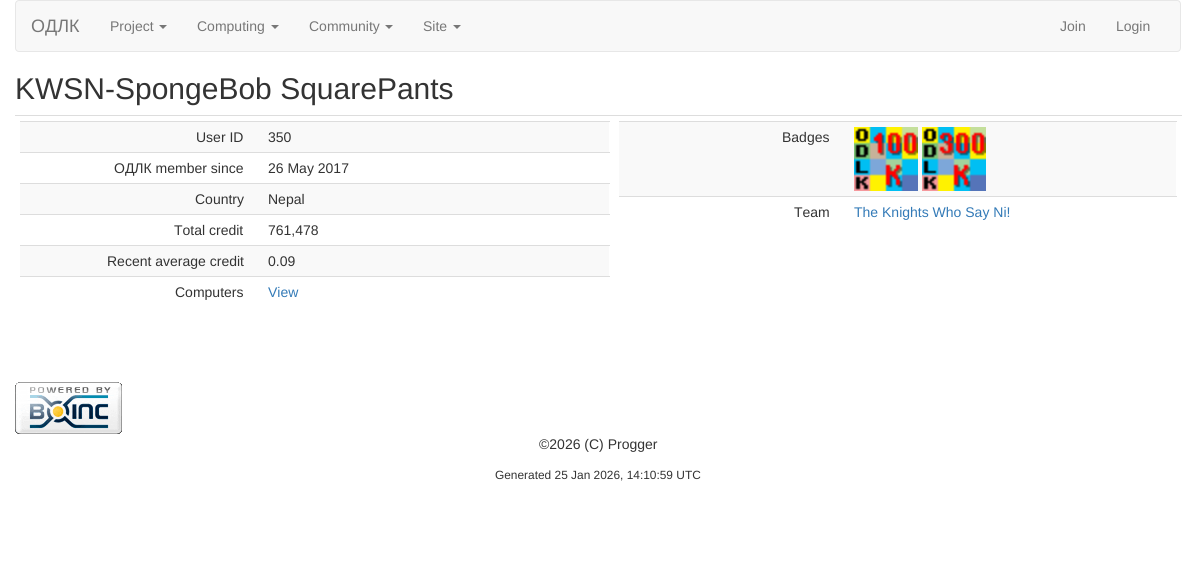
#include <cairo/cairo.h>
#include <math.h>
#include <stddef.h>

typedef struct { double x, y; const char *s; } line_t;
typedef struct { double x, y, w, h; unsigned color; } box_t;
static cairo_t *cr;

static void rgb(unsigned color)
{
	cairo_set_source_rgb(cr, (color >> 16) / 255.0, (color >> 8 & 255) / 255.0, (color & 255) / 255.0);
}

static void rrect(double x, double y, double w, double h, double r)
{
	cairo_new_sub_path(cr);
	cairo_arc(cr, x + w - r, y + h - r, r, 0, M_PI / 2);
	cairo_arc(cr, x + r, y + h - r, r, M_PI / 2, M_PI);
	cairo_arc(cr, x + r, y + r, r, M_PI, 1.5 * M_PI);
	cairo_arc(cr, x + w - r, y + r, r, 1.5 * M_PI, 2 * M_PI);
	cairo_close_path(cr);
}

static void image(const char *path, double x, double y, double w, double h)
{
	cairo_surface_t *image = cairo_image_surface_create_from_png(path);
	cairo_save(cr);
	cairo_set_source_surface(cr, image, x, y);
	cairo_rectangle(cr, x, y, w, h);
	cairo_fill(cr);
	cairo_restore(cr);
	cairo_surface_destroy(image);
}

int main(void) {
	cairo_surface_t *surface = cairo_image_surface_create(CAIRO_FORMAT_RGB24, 1196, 580);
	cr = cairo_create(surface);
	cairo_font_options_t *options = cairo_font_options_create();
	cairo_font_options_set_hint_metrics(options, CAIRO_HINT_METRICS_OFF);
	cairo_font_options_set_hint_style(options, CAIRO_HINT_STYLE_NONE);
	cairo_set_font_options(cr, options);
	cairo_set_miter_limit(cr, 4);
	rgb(0xffffff);
	cairo_paint(cr);
	rgb(0xf8f8f8);
	rrect(15.5, 0.5, 1165, 51, 3.5);
	cairo_fill_preserve(cr);
	rgb(0xe7e7e7);
	cairo_set_line_width(cr, 1);
	cairo_stroke(cr);
	rgb(0x777777);
	cairo_new_path(cr);
	cairo_move_to(cr, 159, 25);
	cairo_line_to(cr, 167, 25);
	cairo_line_to(cr, 163, 29);
	cairo_close_path(cr);
	cairo_fill(cr);
	cairo_new_path(cr);
	cairo_move_to(cr, 271, 25);
	cairo_line_to(cr, 279, 25);
	cairo_line_to(cr, 275, 29);
	cairo_close_path(cr);
	cairo_fill(cr);
	cairo_new_path(cr);
	cairo_move_to(cr, 385, 25);
	cairo_line_to(cr, 393, 25);
	cairo_line_to(cr, 389, 29);
	cairo_close_path(cr);
	cairo_fill(cr);
	cairo_new_path(cr);
	cairo_move_to(cr, 453, 25);
	cairo_line_to(cr, 461, 25);
	cairo_line_to(cr, 457, 29);
	cairo_close_path(cr);
	cairo_fill(cr);
	{
		static const box_t items[] = {
			{20, 122, 589, 30, 0xf9f9f9},
			{20, 121, 590, 1, 0xdddddd},
			{20, 152, 590, 1, 0xdddddd},
			{20, 184, 589, 30, 0xf9f9f9},
			{20, 183, 590, 1, 0xdddddd},
			{20, 214, 590, 1, 0xdddddd},
			{20, 246, 589, 30, 0xf9f9f9},
			{20, 245, 590, 1, 0xdddddd},
			{20, 276, 590, 1, 0xdddddd},
			{15, 115, 1167, 1, 0xdddddd},
			{619, 122, 557, 74, 0xf9f9f9},
			{619, 121, 558, 1, 0xdddddd},
		};
		for (size_t i = 0; i < sizeof items / sizeof *items; i++) {
			rgb(items[i].color);
			cairo_rectangle(cr, items[i].x, items[i].y, items[i].w, items[i].h);
			cairo_fill(cr);
		}
	}
	image("img/1.png", 854, 127, 64, 64);
	image("img/2.png", 922, 127, 64, 64);
	cairo_rectangle(cr, 619, 196, 558, 1);
	cairo_fill(cr);
	image("img/3.png", 15, 382, 107, 52);
	cairo_select_font_face(cr, "Liberation Sans", CAIRO_FONT_SLANT_NORMAL, CAIRO_FONT_WEIGHT_NORMAL);
	cairo_set_font_size(cr, 18);
	rgb(0x777777);
	cairo_move_to(cr, 31, 32);
	cairo_show_text(cr, "ОДЛК");
	cairo_set_font_size(cr, 14);
	{
		static const line_t items[] = {
			{110, 31, "Project"},
			{197, 31, "Computing"},
			{309, 31, "Community"},
			{423, 31, "Site"},
			{1060, 31, "Join"},
			{1116, 31, "Login"},
		};
		for (size_t i = 0; i < sizeof items / sizeof *items; i++) {
			cairo_move_to(cr, items[i].x, items[i].y);
			cairo_show_text(cr, items[i].s);
		}
	}
	cairo_set_font_size(cr, 30);
	rgb(0x333333);
	cairo_move_to(cr, 15, 99);
	cairo_show_text(cr, "KWSN-SpongeBob SquarePants");
	cairo_set_font_size(cr, 14);
	{
		static const line_t items[] = {
			{196, 142, "User ID"},
			{268, 142, "350"},
			{114, 173, "ОДЛК member since"},
			{268, 173, "26 May 2017"},
			{195, 204, "Country"},
			{268, 204, "Nepal"},
			{174, 235, "Total credit"},
			{268, 235, "761,478"},
			{107, 266, "Recent average credit"},
			{268, 266, "0.09"},
			{175, 297, "Computers"},
		};
		for (size_t i = 0; i < sizeof items / sizeof *items; i++) {
			cairo_move_to(cr, items[i].x, items[i].y);
			cairo_show_text(cr, items[i].s);
		}
	}
	rgb(0x337ab7);
	cairo_move_to(cr, 268, 297);
	cairo_show_text(cr, "View");
	rgb(0x333333);
	cairo_move_to(cr, 782, 142);
	cairo_show_text(cr, "Badges");
	cairo_move_to(cr, 794, 217);
	cairo_show_text(cr, "Team");
	rgb(0x337ab7);
	cairo_move_to(cr, 854, 217);
	cairo_show_text(cr, "The Knights Who Say Ni!");
	rgb(0x333333);
	cairo_move_to(cr, 539, 449);
	cairo_show_text(cr, "©2026 (C) Progger");
	cairo_set_font_size(cr, 11.9);
	cairo_move_to(cr, 495, 479);
	cairo_show_text(cr, "Generated 25 Jan 2026, 14:10:59 UTC");
	cairo_surface_write_to_png(surface, "page.png");
	cairo_font_options_destroy(options);
	cairo_destroy(cr);
	cairo_surface_destroy(surface);
	return 0;
}
